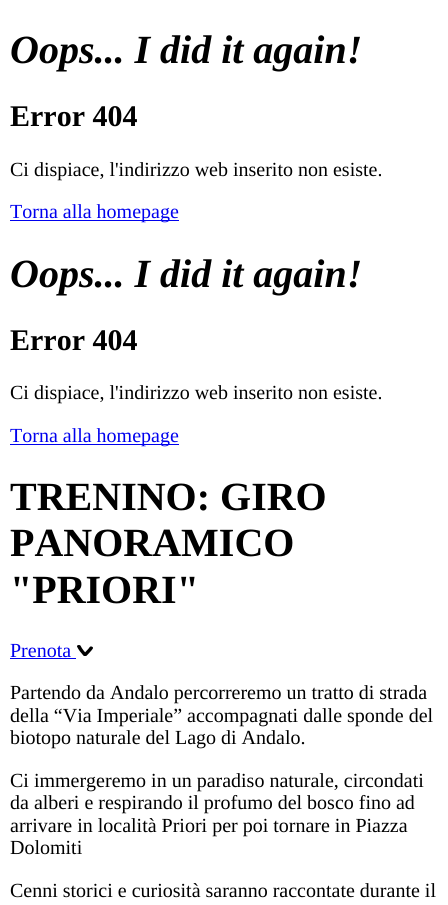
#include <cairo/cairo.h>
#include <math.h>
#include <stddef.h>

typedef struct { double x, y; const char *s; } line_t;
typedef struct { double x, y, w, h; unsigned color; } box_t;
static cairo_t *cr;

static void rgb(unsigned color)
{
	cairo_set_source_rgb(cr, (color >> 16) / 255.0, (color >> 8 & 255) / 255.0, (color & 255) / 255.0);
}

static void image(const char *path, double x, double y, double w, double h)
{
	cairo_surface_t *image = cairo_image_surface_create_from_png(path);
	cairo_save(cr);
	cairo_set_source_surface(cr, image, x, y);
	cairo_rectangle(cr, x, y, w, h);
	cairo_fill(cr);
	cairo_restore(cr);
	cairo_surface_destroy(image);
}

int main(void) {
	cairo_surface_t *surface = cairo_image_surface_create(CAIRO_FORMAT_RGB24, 448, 905);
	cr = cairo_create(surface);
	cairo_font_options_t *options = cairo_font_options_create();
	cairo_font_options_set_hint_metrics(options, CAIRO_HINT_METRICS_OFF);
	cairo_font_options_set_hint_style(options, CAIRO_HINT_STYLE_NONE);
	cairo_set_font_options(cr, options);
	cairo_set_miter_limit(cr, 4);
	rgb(0xffffff);
	cairo_paint(cr);
	{
		static const box_t items[] = {
			{10, 220, 169, 1, 0x0000ee},
			{10, 444, 169, 1, 0x0000ee},
			{10, 658, 66, 1, 0x0000ee},
		};
		for (size_t i = 0; i < sizeof items / sizeof *items; i++) {
			rgb(items[i].color);
			cairo_rectangle(cr, items[i].x, items[i].y, items[i].w, items[i].h);
			cairo_fill(cr);
		}
	}
	image("img/1.png", 77, 645, 16, 11);
	cairo_select_font_face(cr, "Liberation Serif", CAIRO_FONT_SLANT_ITALIC, CAIRO_FONT_WEIGHT_BOLD);
	cairo_set_font_size(cr, 40);
	rgb(0x000000);
	cairo_move_to(cr, 10, 63);
	cairo_show_text(cr, "Oops... I did it again!");
	cairo_select_font_face(cr, "Liberation Serif", CAIRO_FONT_SLANT_NORMAL, CAIRO_FONT_WEIGHT_BOLD);
	cairo_set_font_size(cr, 30);
	cairo_move_to(cr, 10, 126);
	cairo_show_text(cr, "Error 404");
	cairo_select_font_face(cr, "Liberation Serif", CAIRO_FONT_SLANT_NORMAL, CAIRO_FONT_WEIGHT_NORMAL);
	cairo_set_font_size(cr, 20);
	cairo_move_to(cr, 10, 176);
	cairo_show_text(cr, "Ci dispiace, l'indirizzo web inserito non esiste.");
	rgb(0x0000ee);
	cairo_move_to(cr, 10, 218);
	cairo_show_text(cr, "Torna alla homepage");
	cairo_select_font_face(cr, "Liberation Serif", CAIRO_FONT_SLANT_ITALIC, CAIRO_FONT_WEIGHT_BOLD);
	cairo_set_font_size(cr, 40);
	rgb(0x000000);
	cairo_move_to(cr, 10, 287);
	cairo_show_text(cr, "Oops... I did it again!");
	cairo_select_font_face(cr, "Liberation Serif", CAIRO_FONT_SLANT_NORMAL, CAIRO_FONT_WEIGHT_BOLD);
	cairo_set_font_size(cr, 30);
	cairo_move_to(cr, 10, 350);
	cairo_show_text(cr, "Error 404");
	cairo_select_font_face(cr, "Liberation Serif", CAIRO_FONT_SLANT_NORMAL, CAIRO_FONT_WEIGHT_NORMAL);
	cairo_set_font_size(cr, 20);
	cairo_move_to(cr, 10, 399);
	cairo_show_text(cr, "Ci dispiace, l'indirizzo web inserito non esiste.");
	rgb(0x0000ee);
	cairo_move_to(cr, 10, 442);
	cairo_show_text(cr, "Torna alla homepage");
	cairo_select_font_face(cr, "Liberation Serif", CAIRO_FONT_SLANT_NORMAL, CAIRO_FONT_WEIGHT_BOLD);
	cairo_set_font_size(cr, 40);
	rgb(0x000000);
	{
		static const line_t items[] = {
			{10, 510, "TRENINO: GIRO"},
			{10, 556, "PANORAMICO"},
			{10, 603, "\"PRIORI\""},
		};
		for (size_t i = 0; i < sizeof items / sizeof *items; i++) {
			cairo_move_to(cr, items[i].x, items[i].y);
			cairo_show_text(cr, items[i].s);
		}
	}
	cairo_select_font_face(cr, "Liberation Serif", CAIRO_FONT_SLANT_NORMAL, CAIRO_FONT_WEIGHT_NORMAL);
	cairo_set_font_size(cr, 20);
	rgb(0x0000ee);
	cairo_move_to(cr, 10, 657);
	cairo_show_text(cr, "Prenota");
	rgb(0x000000);
	{
		static const line_t items[] = {
			{10, 699, "Partendo da Andalo percorreremo un tratto di strada"},
			{10, 722, "della “Via Imperiale” accompagnati dalle sponde del"},
			{10, 744, "biotopo naturale del Lago di Andalo."},
			{10, 787, "Ci immergeremo in un paradiso naturale, circondati"},
			{10, 809, "da alberi e respirando il profumo del bosco fino ad"},
			{10, 832, "arrivare in località Priori per poi tornare in Piazza"},
			{10, 854, "Dolomiti"},
			{10, 897, "Cenni storici e curiosità saranno raccontate durante il"},
		};
		for (size_t i = 0; i < sizeof items / sizeof *items; i++) {
			cairo_move_to(cr, items[i].x, items[i].y);
			cairo_show_text(cr, items[i].s);
		}
	}
	cairo_surface_write_to_png(surface, "page.png");
	cairo_font_options_destroy(options);
	cairo_destroy(cr);
	cairo_surface_destroy(surface);
	return 0;
}
